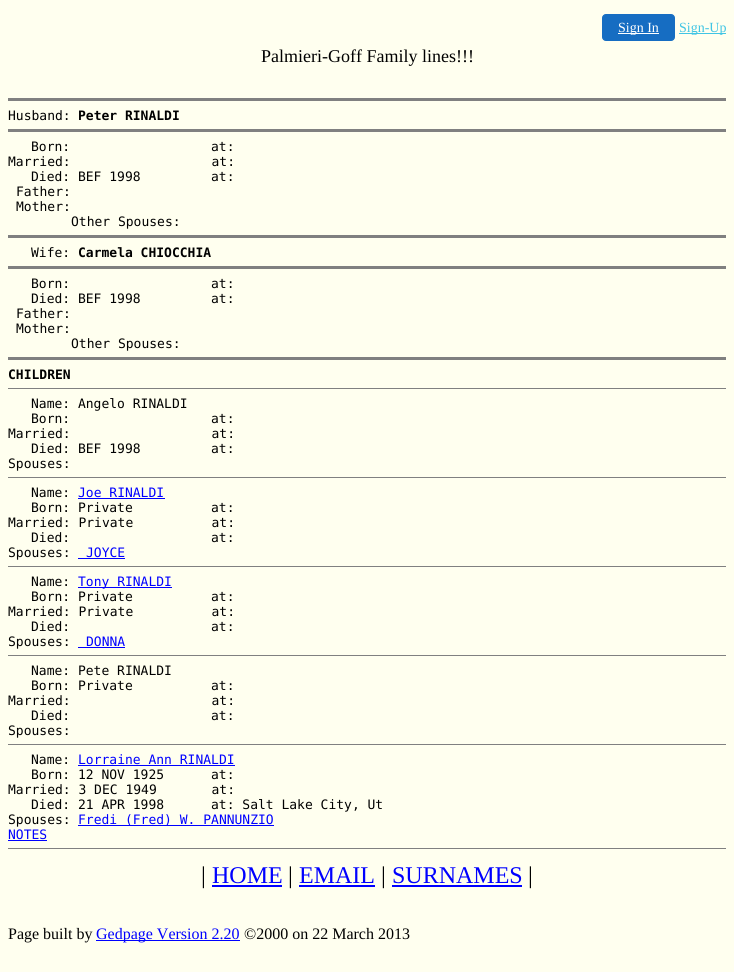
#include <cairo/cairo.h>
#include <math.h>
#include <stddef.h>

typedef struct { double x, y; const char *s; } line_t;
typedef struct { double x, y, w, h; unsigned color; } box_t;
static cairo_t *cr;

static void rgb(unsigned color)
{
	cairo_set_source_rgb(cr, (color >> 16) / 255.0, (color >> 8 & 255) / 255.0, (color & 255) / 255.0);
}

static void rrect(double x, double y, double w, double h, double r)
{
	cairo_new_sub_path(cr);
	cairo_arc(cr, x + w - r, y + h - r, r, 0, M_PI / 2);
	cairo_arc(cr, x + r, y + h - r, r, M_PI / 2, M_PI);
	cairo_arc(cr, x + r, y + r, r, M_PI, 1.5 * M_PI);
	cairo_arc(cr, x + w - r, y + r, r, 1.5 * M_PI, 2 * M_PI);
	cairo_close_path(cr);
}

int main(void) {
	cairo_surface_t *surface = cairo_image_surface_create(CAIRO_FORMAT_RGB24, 734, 972);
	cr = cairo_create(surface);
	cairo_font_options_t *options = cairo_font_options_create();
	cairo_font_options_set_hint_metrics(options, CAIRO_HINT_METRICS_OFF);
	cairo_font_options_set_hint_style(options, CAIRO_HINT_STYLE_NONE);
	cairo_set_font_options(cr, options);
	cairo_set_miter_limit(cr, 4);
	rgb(0xffffef);
	cairo_paint(cr);
	rgb(0x166dc2);
	rrect(602.5, 14.5, 72, 26, 3.5);
	cairo_fill_preserve(cr);
	cairo_set_line_width(cr, 1);
	cairo_stroke(cr);
	{
		static const box_t items[] = {
			{618, 33, 41, 1, 0xffffff},
			{679, 33, 47, 1, 0x41c5e4},
			{8, 98, 718, 3, 0x808080},
			{8, 129, 718, 3, 0x808080},
			{8, 235, 718, 3, 0x808080},
			{8, 266, 718, 3, 0x808080},
			{8, 357, 718, 3, 0x808080},
			{8, 388, 718, 1, 0x808080},
			{8, 477, 718, 1, 0x808080},
			{78, 498, 87, 1, 0x0000ff},
			{78, 558, 47, 1, 0x0000ff},
			{8, 566, 718, 1, 0x808080},
			{78, 587, 94, 1, 0x0000ff},
			{78, 647, 47, 1, 0x0000ff},
			{8, 655, 718, 1, 0x808080},
			{8, 744, 718, 1, 0x808080},
			{78, 765, 157, 1, 0x0000ff},
			{78, 825, 196, 1, 0x0000ff},
			{8, 840, 39, 1, 0x0000ff},
			{8, 848, 718, 1, 0x808080},
			{212, 885, 70, 2, 0x0000ff},
			{299, 885, 76, 2, 0x0000ff},
			{392, 885, 130, 2, 0x0000ff},
			{96, 940, 144, 1, 0x0000ff},
		};
		for (size_t i = 0; i < sizeof items / sizeof *items; i++) {
			rgb(items[i].color);
			cairo_rectangle(cr, items[i].x, items[i].y, items[i].w, items[i].h);
			cairo_fill(cr);
		}
	}
	cairo_select_font_face(cr, "Liberation Serif", CAIRO_FONT_SLANT_NORMAL, CAIRO_FONT_WEIGHT_NORMAL);
	cairo_set_font_size(cr, 14);
	rgb(0xffffff);
	cairo_move_to(cr, 618, 32);
	cairo_show_text(cr, "Sign In");
	rgb(0x41c5e4);
	cairo_move_to(cr, 679, 32);
	cairo_show_text(cr, "Sign-Up");
	cairo_set_font_size(cr, 18);
	rgb(0x000000);
	cairo_move_to(cr, 261, 62);
	cairo_show_text(cr, "Palmieri-Goff Family lines!!!");
	cairo_select_font_face(cr, "DejaVu Sans Mono", CAIRO_FONT_SLANT_NORMAL, CAIRO_FONT_WEIGHT_NORMAL);
	cairo_set_font_size(cr, 13);
	cairo_move_to(cr, 8, 120);
	cairo_show_text(cr, "Husband:");
	cairo_select_font_face(cr, "DejaVu Sans Mono", CAIRO_FONT_SLANT_NORMAL, CAIRO_FONT_WEIGHT_BOLD);
	cairo_move_to(cr, 78, 120);
	cairo_show_text(cr, "Peter RINALDI");
	cairo_select_font_face(cr, "DejaVu Sans Mono", CAIRO_FONT_SLANT_NORMAL, CAIRO_FONT_WEIGHT_NORMAL);
	{
		static const line_t items[] = {
			{31, 151, "Born:                  at:"},
			{8, 166, "Married:                  at:"},
			{31, 181, "Died: BEF 1998         at:"},
			{16, 196, "Father:"},
			{16, 211, "Mother:"},
			{71, 226, "Other Spouses:"},
			{31, 257, "Wife:"},
		};
		for (size_t i = 0; i < sizeof items / sizeof *items; i++) {
			cairo_move_to(cr, items[i].x, items[i].y);
			cairo_show_text(cr, items[i].s);
		}
	}
	cairo_select_font_face(cr, "DejaVu Sans Mono", CAIRO_FONT_SLANT_NORMAL, CAIRO_FONT_WEIGHT_BOLD);
	cairo_move_to(cr, 78, 257);
	cairo_show_text(cr, "Carmela CHIOCCHIA");
	cairo_select_font_face(cr, "DejaVu Sans Mono", CAIRO_FONT_SLANT_NORMAL, CAIRO_FONT_WEIGHT_NORMAL);
	{
		static const line_t items[] = {
			{31, 288, "Born:                  at:"},
			{31, 303, "Died: BEF 1998         at:"},
			{16, 318, "Father:"},
			{16, 333, "Mother:"},
			{71, 348, "Other Spouses:"},
		};
		for (size_t i = 0; i < sizeof items / sizeof *items; i++) {
			cairo_move_to(cr, items[i].x, items[i].y);
			cairo_show_text(cr, items[i].s);
		}
	}
	cairo_select_font_face(cr, "DejaVu Sans Mono", CAIRO_FONT_SLANT_NORMAL, CAIRO_FONT_WEIGHT_BOLD);
	cairo_move_to(cr, 8, 379);
	cairo_show_text(cr, "CHILDREN");
	cairo_select_font_face(cr, "DejaVu Sans Mono", CAIRO_FONT_SLANT_NORMAL, CAIRO_FONT_WEIGHT_NORMAL);
	{
		static const line_t items[] = {
			{31, 408, "Name: Angelo RINALDI"},
			{31, 423, "Born:                  at:"},
			{8, 438, "Married:                  at:"},
			{31, 453, "Died: BEF 1998         at:"},
			{8, 468, "Spouses:"},
			{31, 497, "Name:"},
		};
		for (size_t i = 0; i < sizeof items / sizeof *items; i++) {
			cairo_move_to(cr, items[i].x, items[i].y);
			cairo_show_text(cr, items[i].s);
		}
	}
	rgb(0x0000ff);
	cairo_move_to(cr, 78, 497);
	cairo_show_text(cr, "Joe RINALDI");
	rgb(0x000000);
	{
		static const line_t items[] = {
			{31, 512, "Born: Private          at:"},
			{8, 527, "Married: Private          at:"},
			{31, 542, "Died:                  at:"},
			{8, 557, "Spouses:"},
		};
		for (size_t i = 0; i < sizeof items / sizeof *items; i++) {
			cairo_move_to(cr, items[i].x, items[i].y);
			cairo_show_text(cr, items[i].s);
		}
	}
	rgb(0x0000ff);
	cairo_move_to(cr, 86, 557);
	cairo_show_text(cr, "JOYCE");
	rgb(0x000000);
	cairo_move_to(cr, 31, 586);
	cairo_show_text(cr, "Name:");
	rgb(0x0000ff);
	cairo_move_to(cr, 78, 586);
	cairo_show_text(cr, "Tony RINALDI");
	rgb(0x000000);
	{
		static const line_t items[] = {
			{31, 601, "Born: Private          at:"},
			{8, 616, "Married: Private          at:"},
			{31, 631, "Died:                  at:"},
			{8, 646, "Spouses:"},
		};
		for (size_t i = 0; i < sizeof items / sizeof *items; i++) {
			cairo_move_to(cr, items[i].x, items[i].y);
			cairo_show_text(cr, items[i].s);
		}
	}
	rgb(0x0000ff);
	cairo_move_to(cr, 86, 646);
	cairo_show_text(cr, "DONNA");
	rgb(0x000000);
	{
		static const line_t items[] = {
			{31, 675, "Name: Pete RINALDI"},
			{31, 690, "Born: Private          at:"},
			{8, 705, "Married:                  at:"},
			{31, 720, "Died:                  at:"},
			{8, 735, "Spouses:"},
			{31, 764, "Name:"},
		};
		for (size_t i = 0; i < sizeof items / sizeof *items; i++) {
			cairo_move_to(cr, items[i].x, items[i].y);
			cairo_show_text(cr, items[i].s);
		}
	}
	rgb(0x0000ff);
	cairo_move_to(cr, 78, 764);
	cairo_show_text(cr, "Lorraine Ann RINALDI");
	rgb(0x000000);
	{
		static const line_t items[] = {
			{31, 779, "Born: 12 NOV 1925      at:"},
			{8, 794, "Married: 3 DEC 1949       at:"},
			{31, 809, "Died: 21 APR 1998      at: Salt Lake City, Ut"},
			{8, 824, "Spouses:"},
		};
		for (size_t i = 0; i < sizeof items / sizeof *items; i++) {
			cairo_move_to(cr, items[i].x, items[i].y);
			cairo_show_text(cr, items[i].s);
		}
	}
	rgb(0x0000ff);
	cairo_move_to(cr, 78, 824);
	cairo_show_text(cr, "Fredi (Fred) W. PANNUNZIO");
	cairo_move_to(cr, 8, 839);
	cairo_show_text(cr, "NOTES");
	cairo_select_font_face(cr, "Liberation Serif", CAIRO_FONT_SLANT_NORMAL, CAIRO_FONT_WEIGHT_NORMAL);
	cairo_set_font_size(cr, 24);
	rgb(0x000000);
	cairo_move_to(cr, 201, 883);
	cairo_show_text(cr, "|");
	rgb(0x0000ff);
	cairo_move_to(cr, 212, 883);
	cairo_show_text(cr, "HOME");
	rgb(0x000000);
	cairo_move_to(cr, 288, 883);
	cairo_show_text(cr, "|");
	rgb(0x0000ff);
	cairo_move_to(cr, 299, 883);
	cairo_show_text(cr, "EMAIL");
	rgb(0x000000);
	cairo_move_to(cr, 381, 883);
	cairo_show_text(cr, "|");
	rgb(0x0000ff);
	cairo_move_to(cr, 392, 883);
	cairo_show_text(cr, "SURNAMES");
	rgb(0x000000);
	cairo_move_to(cr, 528, 883);
	cairo_show_text(cr, "|");
	cairo_set_font_size(cr, 16);
	cairo_move_to(cr, 8, 939);
	cairo_show_text(cr, "Page built by");
	rgb(0x0000ff);
	cairo_move_to(cr, 96, 939);
	cairo_show_text(cr, "Gedpage Version 2.20");
	rgb(0x000000);
	cairo_move_to(cr, 244, 939);
	cairo_show_text(cr, "©2000 on 22 March 2013");
	cairo_surface_write_to_png(surface, "page.png");
	cairo_font_options_destroy(options);
	cairo_destroy(cr);
	cairo_surface_destroy(surface);
	return 0;
}
